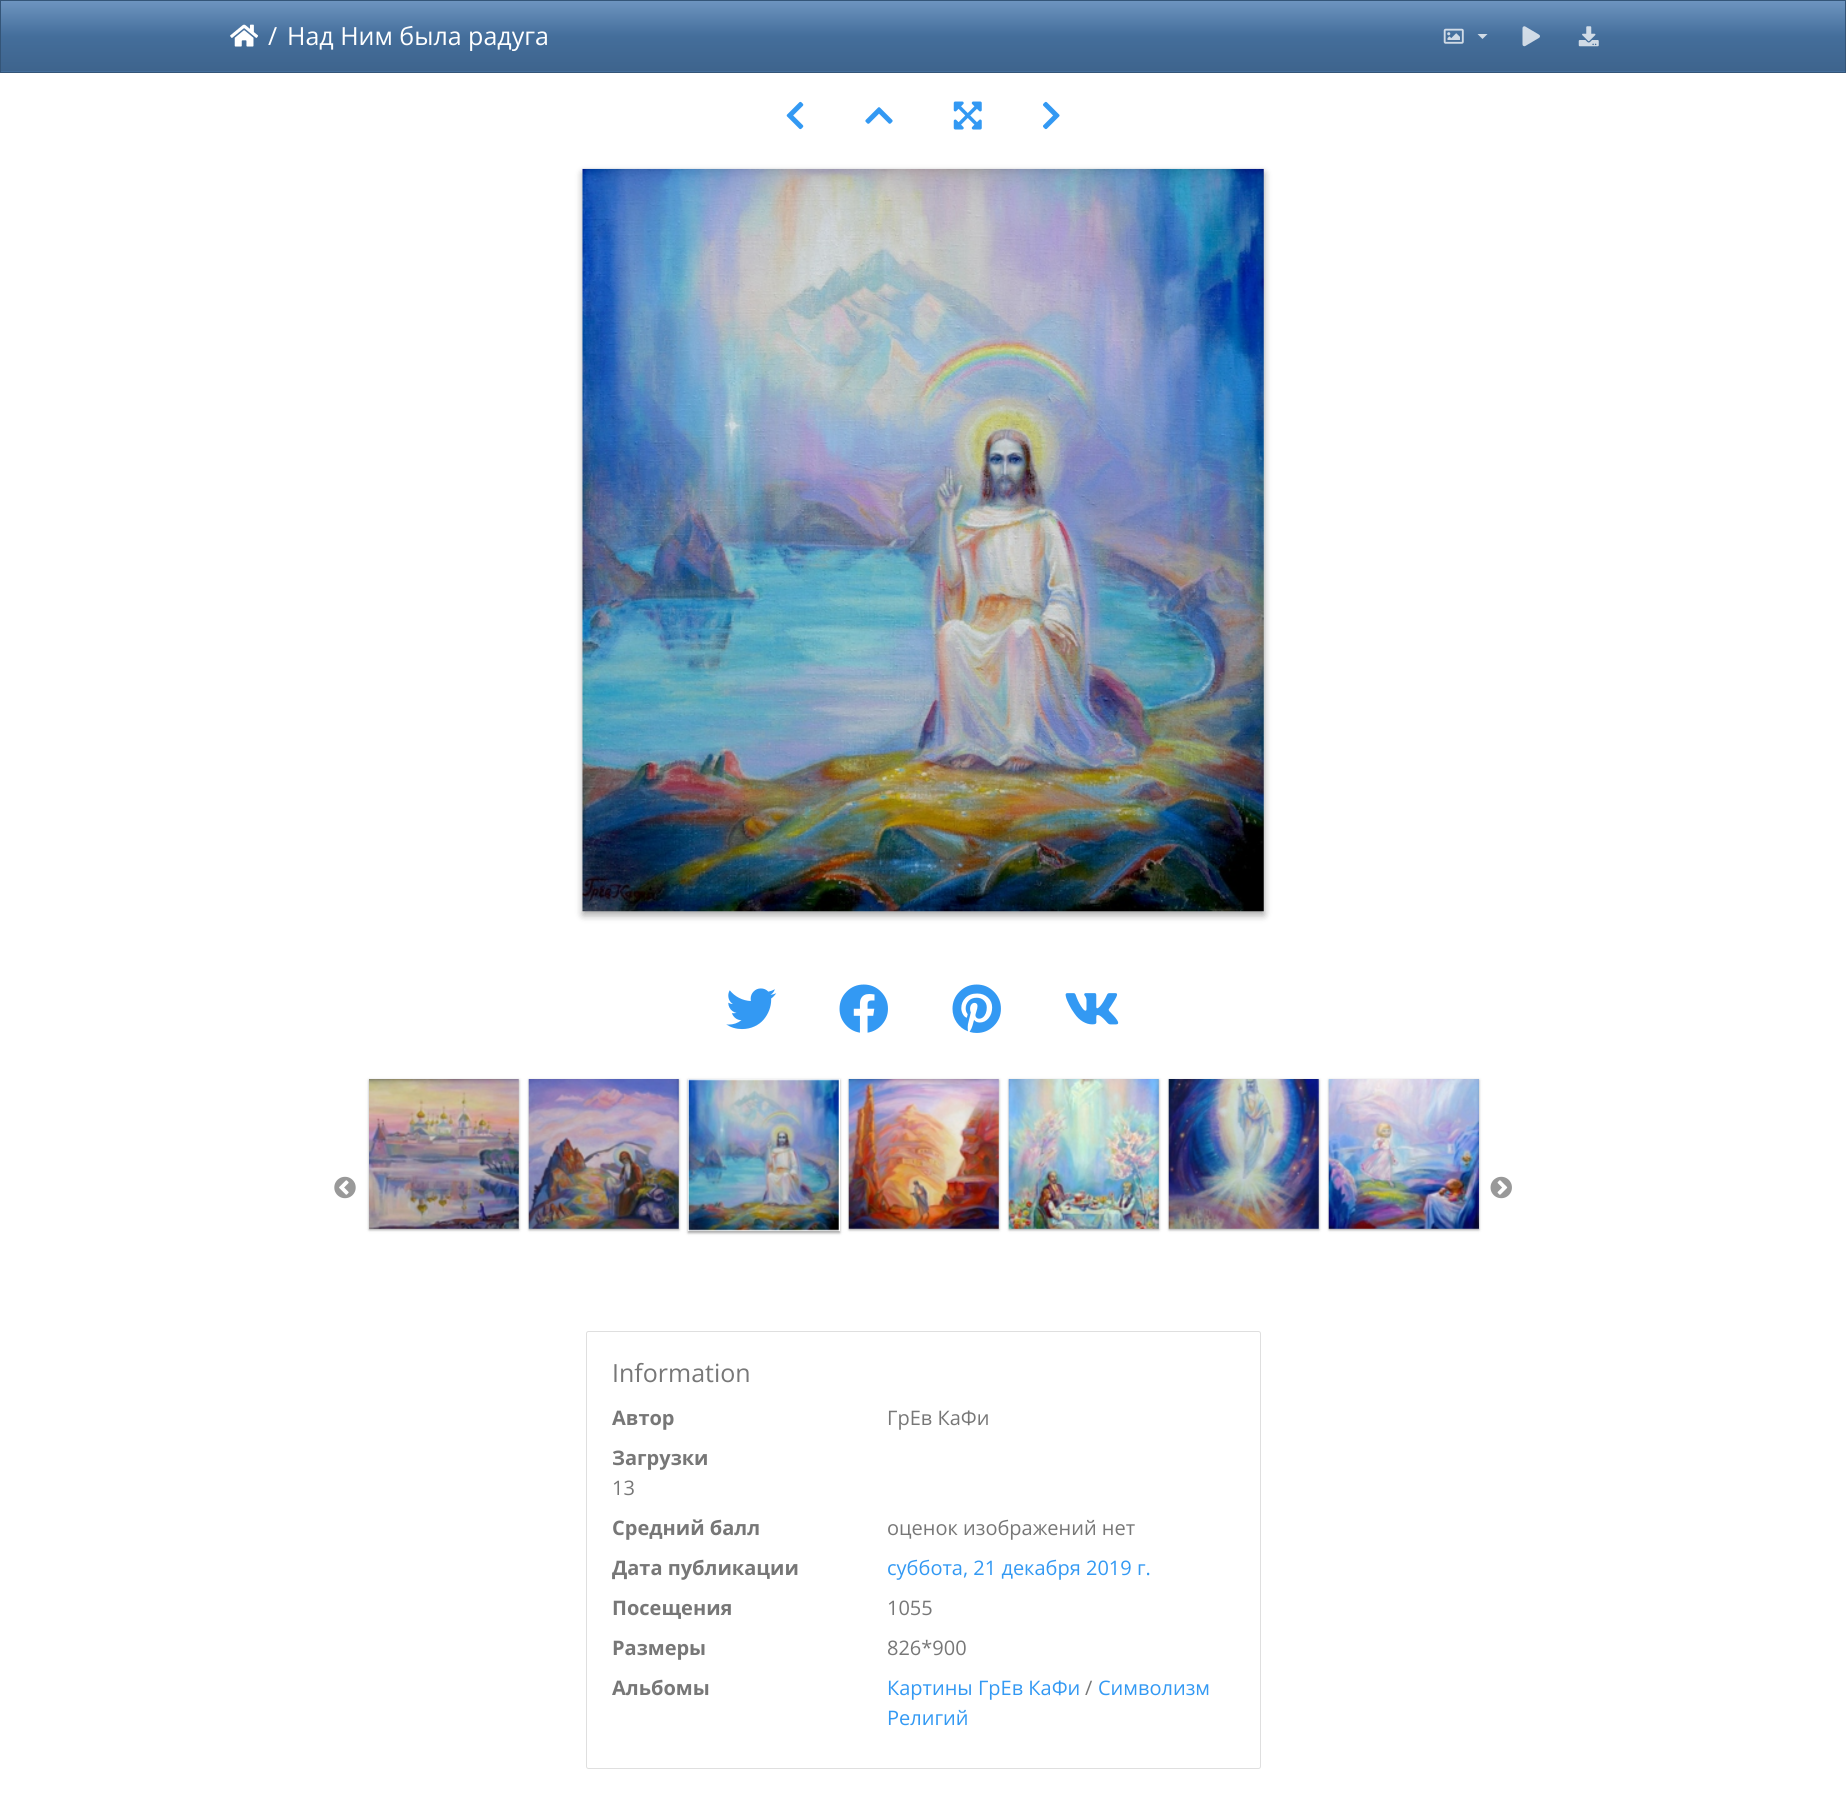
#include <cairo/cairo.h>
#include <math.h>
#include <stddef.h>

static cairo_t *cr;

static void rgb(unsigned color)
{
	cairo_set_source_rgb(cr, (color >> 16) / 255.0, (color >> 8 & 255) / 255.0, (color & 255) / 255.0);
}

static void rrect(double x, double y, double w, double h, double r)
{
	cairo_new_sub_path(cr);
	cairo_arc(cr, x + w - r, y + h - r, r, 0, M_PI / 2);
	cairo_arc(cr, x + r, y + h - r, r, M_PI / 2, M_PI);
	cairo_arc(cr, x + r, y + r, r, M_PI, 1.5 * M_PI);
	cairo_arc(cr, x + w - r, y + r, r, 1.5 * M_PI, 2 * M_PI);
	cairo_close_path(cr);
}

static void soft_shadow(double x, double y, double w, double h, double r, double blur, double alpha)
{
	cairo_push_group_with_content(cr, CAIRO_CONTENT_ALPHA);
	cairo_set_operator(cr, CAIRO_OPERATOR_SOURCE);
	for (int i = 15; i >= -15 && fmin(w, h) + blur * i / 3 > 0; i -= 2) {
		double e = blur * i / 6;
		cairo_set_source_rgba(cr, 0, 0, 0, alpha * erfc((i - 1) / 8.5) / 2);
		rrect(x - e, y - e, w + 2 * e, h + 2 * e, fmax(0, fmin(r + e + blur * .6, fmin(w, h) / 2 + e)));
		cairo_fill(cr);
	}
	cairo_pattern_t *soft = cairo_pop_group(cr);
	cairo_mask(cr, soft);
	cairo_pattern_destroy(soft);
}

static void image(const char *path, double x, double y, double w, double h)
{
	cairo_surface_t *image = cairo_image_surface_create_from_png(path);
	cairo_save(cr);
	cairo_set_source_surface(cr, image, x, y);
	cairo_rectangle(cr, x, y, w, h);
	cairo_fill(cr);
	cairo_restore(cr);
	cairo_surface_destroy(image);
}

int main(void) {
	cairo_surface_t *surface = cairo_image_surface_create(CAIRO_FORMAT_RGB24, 1846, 1807);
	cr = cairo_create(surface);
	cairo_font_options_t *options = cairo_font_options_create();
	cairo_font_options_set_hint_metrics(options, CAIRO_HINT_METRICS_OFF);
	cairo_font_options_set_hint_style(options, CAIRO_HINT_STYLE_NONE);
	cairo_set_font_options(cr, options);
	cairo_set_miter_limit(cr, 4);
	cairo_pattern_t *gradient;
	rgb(0xffffff);
	cairo_paint(cr);
	rgb(0x446e9b);
	cairo_rectangle(cr, 1, 71, 1844, 1);
	cairo_fill(cr);
	gradient = cairo_pattern_create_linear(923, 1.2, 923, 71);
	cairo_pattern_add_color_stop_rgba(gradient, 0, 0.427, 0.58, 0.749, 1);
	cairo_pattern_add_color_stop_rgba(gradient, 0.5, 0.267, 0.431, 0.608, 1);
	cairo_pattern_add_color_stop_rgba(gradient, 1, 0.243, 0.392, 0.553, 1);
	cairo_set_source(cr, gradient);
	cairo_pattern_destroy(gradient);
	cairo_rectangle(cr, 1, 1, 1844, 70);
	cairo_fill(cr);
	cairo_rectangle(cr, 0.5, 0.5, 1845, 72);
	rgb(0x345578);
	cairo_set_line_width(cr, 1);
	cairo_stroke(cr);
	image("img/1.png", 230, 24, 28, 23);
	image("img/2.png", 1443, 28, 21, 16);
	cairo_set_source_rgba(cr, 1, 1, 1, 0.75);
	cairo_new_path(cr);
	cairo_move_to(cr, 1477.5, 34);
	cairo_line_to(cr, 1487.5, 34);
	cairo_line_to(cr, 1482.5, 39);
	cairo_close_path(cr);
	cairo_fill(cr);
	image("img/3.png", 1522, 26, 18, 21);
	image("img/4.png", 1578, 26, 21, 21);
	image("img/5.png", 786, 101, 18, 29);
	image("img/6.png", 865, 107, 28, 17);
	image("img/7.png", 953, 101, 29, 29);
	image("img/8.png", 1043, 101, 17, 29);
	rgb(0x000000);
	soft_shadow(583, 173, 681, 742, 0, 4, 0.23);
	soft_shadow(583, 173, 681, 742, 0, 4, 0.16);
	image("img/9.png", 582, 168, 682, 744);
	image("img/10.png", 726, 988, 51, 42);
	image("img/11.png", 839, 984, 49, 49);
	image("img/12.png", 952, 984, 49, 49);
	image("img/13.png", 1065, 993, 54, 32);
	image("img/14.png", 334, 1176, 22, 23);
	soft_shadow(369, 1080, 150, 150, 0, 2, 0.12);
	soft_shadow(369, 1080, 150, 150, 0, 1, 0.24);
	image("img/15.png", 369, 1079, 150, 150);
	soft_shadow(529, 1080, 150, 150, 0, 2, 0.12);
	soft_shadow(529, 1080, 150, 150, 0, 1, 0.24);
	image("img/16.png", 528, 1079, 151, 150);
	cairo_save(cr);
	cairo_set_fill_rule(cr, CAIRO_FILL_RULE_EVEN_ODD);
	cairo_new_path(cr);
	cairo_move_to(cr, 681, 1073);
	cairo_line_to(cr, 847, 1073);
	cairo_line_to(cr, 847, 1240);
	cairo_line_to(cr, 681, 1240);
	cairo_close_path(cr);
	cairo_move_to(cr, 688, 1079);
	cairo_line_to(cr, 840, 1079);
	cairo_line_to(cr, 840, 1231);
	cairo_line_to(cr, 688, 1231);
	cairo_close_path(cr);
	cairo_clip(cr);
	soft_shadow(688, 1080, 152, 153, 0, 2, 0.12);
	cairo_restore(cr);
	cairo_save(cr);
	cairo_set_fill_rule(cr, CAIRO_FILL_RULE_EVEN_ODD);
	cairo_new_path(cr);
	cairo_move_to(cr, 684, 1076);
	cairo_line_to(cr, 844, 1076);
	cairo_line_to(cr, 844, 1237);
	cairo_line_to(cr, 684, 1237);
	cairo_close_path(cr);
	cairo_move_to(cr, 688, 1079);
	cairo_line_to(cr, 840, 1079);
	cairo_line_to(cr, 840, 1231);
	cairo_line_to(cr, 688, 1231);
	cairo_close_path(cr);
	cairo_clip(cr);
	soft_shadow(688, 1080, 152, 153, 0, 1, 0.24);
	cairo_restore(cr);
	image("img/17.png", 688, 1079, 151, 152);
	soft_shadow(849, 1080, 150, 150, 0, 2, 0.12);
	soft_shadow(849, 1080, 150, 150, 0, 1, 0.24);
	image("img/18.png", 848, 1079, 151, 150);
	soft_shadow(1009, 1080, 150, 150, 0, 2, 0.12);
	soft_shadow(1009, 1080, 150, 150, 0, 1, 0.24);
	image("img/19.png", 1008, 1079, 151, 150);
	soft_shadow(1169, 1080, 150, 150, 0, 2, 0.12);
	soft_shadow(1169, 1080, 150, 150, 0, 1, 0.24);
	image("img/20.png", 1168, 1079, 151, 150);
	soft_shadow(1329, 1080, 150, 150, 0, 2, 0.12);
	soft_shadow(1329, 1080, 150, 150, 0, 1, 0.24);
	image("img/21.png", 1328, 1079, 151, 150);
	image("img/22.png", 1490, 1176, 22, 23);
	rrect(586.5, 1331.5, 674, 437, 2);
	rgb(0xdfdfdf);
	cairo_stroke(cr);
	cairo_select_font_face(cr, "Open Sans", CAIRO_FONT_SLANT_NORMAL, CAIRO_FONT_WEIGHT_NORMAL);
	cairo_set_font_size(cr, 25);
	rgb(0xffffff);
	cairo_move_to(cr, 268, 45);
	cairo_show_text(cr, "/");
	cairo_move_to(cr, 287, 45);
	cairo_show_text(cr, "Над Ним была радуга");
	rgb(0x777777);
	cairo_move_to(cr, 612, 1382);
	cairo_show_text(cr, "Information");
	cairo_select_font_face(cr, "Open Sans", CAIRO_FONT_SLANT_NORMAL, CAIRO_FONT_WEIGHT_BOLD);
	cairo_set_font_size(cr, 20);
	cairo_move_to(cr, 612, 1425);
	cairo_show_text(cr, "Автор");
	cairo_select_font_face(cr, "Open Sans", CAIRO_FONT_SLANT_NORMAL, CAIRO_FONT_WEIGHT_NORMAL);
	cairo_move_to(cr, 887, 1425);
	cairo_show_text(cr, "ГрЕв КаФи");
	cairo_select_font_face(cr, "Open Sans", CAIRO_FONT_SLANT_NORMAL, CAIRO_FONT_WEIGHT_BOLD);
	cairo_move_to(cr, 612, 1465);
	cairo_show_text(cr, "Загрузки");
	cairo_select_font_face(cr, "Open Sans", CAIRO_FONT_SLANT_NORMAL, CAIRO_FONT_WEIGHT_NORMAL);
	cairo_move_to(cr, 612, 1495);
	cairo_show_text(cr, "13");
	cairo_select_font_face(cr, "Open Sans", CAIRO_FONT_SLANT_NORMAL, CAIRO_FONT_WEIGHT_BOLD);
	cairo_move_to(cr, 612, 1535);
	cairo_show_text(cr, "Средний балл");
	cairo_select_font_face(cr, "Open Sans", CAIRO_FONT_SLANT_NORMAL, CAIRO_FONT_WEIGHT_NORMAL);
	cairo_move_to(cr, 887, 1535);
	cairo_show_text(cr, "оценок изображений нет");
	cairo_select_font_face(cr, "Open Sans", CAIRO_FONT_SLANT_NORMAL, CAIRO_FONT_WEIGHT_BOLD);
	cairo_move_to(cr, 612, 1575);
	cairo_show_text(cr, "Дата публикации");
	cairo_select_font_face(cr, "Open Sans", CAIRO_FONT_SLANT_NORMAL, CAIRO_FONT_WEIGHT_NORMAL);
	rgb(0x3399f3);
	cairo_move_to(cr, 887, 1575);
	cairo_show_text(cr, "суббота, 21 декабря 2019 г.");
	cairo_select_font_face(cr, "Open Sans", CAIRO_FONT_SLANT_NORMAL, CAIRO_FONT_WEIGHT_BOLD);
	rgb(0x777777);
	cairo_move_to(cr, 612, 1615);
	cairo_show_text(cr, "Посещения");
	cairo_select_font_face(cr, "Open Sans", CAIRO_FONT_SLANT_NORMAL, CAIRO_FONT_WEIGHT_NORMAL);
	cairo_move_to(cr, 887, 1615);
	cairo_show_text(cr, "1055");
	cairo_select_font_face(cr, "Open Sans", CAIRO_FONT_SLANT_NORMAL, CAIRO_FONT_WEIGHT_BOLD);
	cairo_move_to(cr, 612, 1655);
	cairo_show_text(cr, "Размеры");
	cairo_select_font_face(cr, "Open Sans", CAIRO_FONT_SLANT_NORMAL, CAIRO_FONT_WEIGHT_NORMAL);
	cairo_move_to(cr, 887, 1655);
	cairo_show_text(cr, "826*900");
	cairo_select_font_face(cr, "Open Sans", CAIRO_FONT_SLANT_NORMAL, CAIRO_FONT_WEIGHT_BOLD);
	cairo_move_to(cr, 612, 1695);
	cairo_show_text(cr, "Альбомы");
	cairo_select_font_face(cr, "Open Sans", CAIRO_FONT_SLANT_NORMAL, CAIRO_FONT_WEIGHT_NORMAL);
	rgb(0x3399f3);
	cairo_move_to(cr, 887, 1695);
	cairo_show_text(cr, "Картины ГрЕв КаФи");
	rgb(0x777777);
	cairo_move_to(cr, 1085, 1695);
	cairo_show_text(cr, "/");
	rgb(0x3399f3);
	cairo_move_to(cr, 1098, 1695);
	cairo_show_text(cr, "Символизм");
	cairo_move_to(cr, 887, 1725);
	cairo_show_text(cr, "Религий");
	cairo_surface_write_to_png(surface, "page.png");
	cairo_font_options_destroy(options);
	cairo_destroy(cr);
	cairo_surface_destroy(surface);
	return 0;
}
